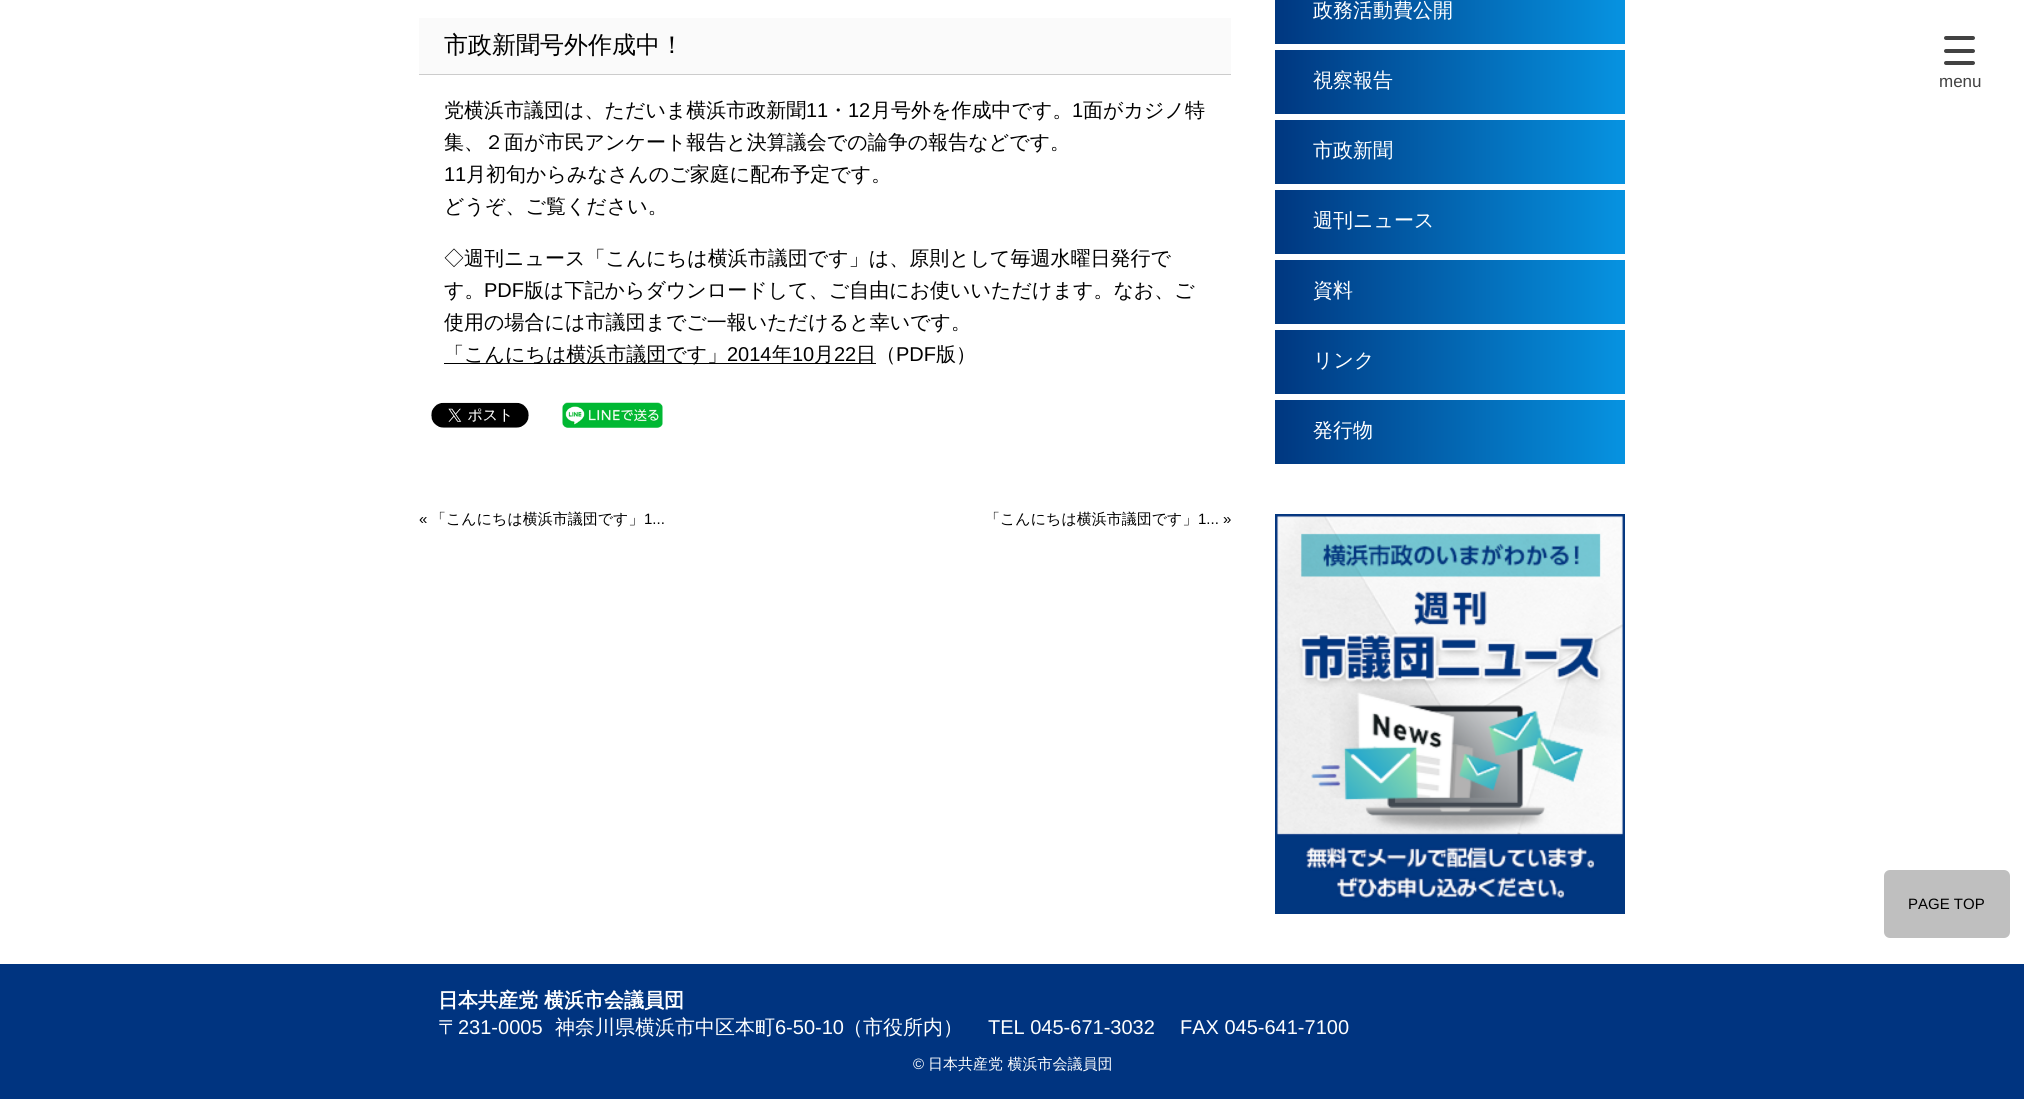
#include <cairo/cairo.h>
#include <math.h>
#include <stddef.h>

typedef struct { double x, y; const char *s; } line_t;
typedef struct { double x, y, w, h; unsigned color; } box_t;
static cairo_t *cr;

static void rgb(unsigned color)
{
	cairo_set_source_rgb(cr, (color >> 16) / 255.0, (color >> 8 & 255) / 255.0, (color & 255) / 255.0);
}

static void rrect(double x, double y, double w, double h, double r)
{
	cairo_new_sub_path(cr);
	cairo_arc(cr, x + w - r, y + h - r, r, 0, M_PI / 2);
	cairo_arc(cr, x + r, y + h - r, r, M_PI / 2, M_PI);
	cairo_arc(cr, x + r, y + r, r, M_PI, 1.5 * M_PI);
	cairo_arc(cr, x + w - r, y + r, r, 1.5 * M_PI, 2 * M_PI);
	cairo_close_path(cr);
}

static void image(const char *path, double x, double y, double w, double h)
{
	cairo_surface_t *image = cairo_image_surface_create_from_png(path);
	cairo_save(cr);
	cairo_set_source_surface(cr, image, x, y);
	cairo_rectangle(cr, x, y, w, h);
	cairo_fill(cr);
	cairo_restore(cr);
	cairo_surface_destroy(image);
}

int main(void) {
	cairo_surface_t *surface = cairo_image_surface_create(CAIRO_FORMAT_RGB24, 2024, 1099);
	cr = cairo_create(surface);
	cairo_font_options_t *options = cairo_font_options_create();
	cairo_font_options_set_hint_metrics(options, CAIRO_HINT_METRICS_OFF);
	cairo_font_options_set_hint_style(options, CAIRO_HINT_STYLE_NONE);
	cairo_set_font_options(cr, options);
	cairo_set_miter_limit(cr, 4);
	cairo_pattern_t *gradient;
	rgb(0xffffff);
	cairo_paint(cr);
	{
		static const box_t items[] = {
			{419, 18, 812, 56, 0xfafafa},
			{419, 74, 812, 1, 0xcccccc},
			{444, 363, 432, 1, 0x000000},
		};
		for (size_t i = 0; i < sizeof items / sizeof *items; i++) {
			rgb(items[i].color);
			cairo_rectangle(cr, items[i].x, items[i].y, items[i].w, items[i].h);
			cairo_fill(cr);
		}
	}
	image("img/1.png", 431, 402, 98, 26);
	image("img/2.png", 562, 402, 101, 26);
	gradient = cairo_pattern_create_linear(1275, 12, 1625, 12);
	cairo_pattern_add_color_stop_rgba(gradient, 0, 0, 0.216, 0.502, 1);
	cairo_pattern_add_color_stop_rgba(gradient, 1, 0.024, 0.576, 0.882, 1);
	cairo_set_source(cr, gradient);
	cairo_pattern_destroy(gradient);
	cairo_rectangle(cr, 1275, 0, 350, 44);
	cairo_fill(cr);
	gradient = cairo_pattern_create_linear(1275, 82, 1625, 82);
	cairo_pattern_add_color_stop_rgba(gradient, 0, 0, 0.216, 0.502, 1);
	cairo_pattern_add_color_stop_rgba(gradient, 1, 0.024, 0.576, 0.882, 1);
	cairo_set_source(cr, gradient);
	cairo_pattern_destroy(gradient);
	cairo_rectangle(cr, 1275, 50, 350, 64);
	cairo_fill(cr);
	gradient = cairo_pattern_create_linear(1275, 152, 1625, 152);
	cairo_pattern_add_color_stop_rgba(gradient, 0, 0, 0.216, 0.502, 1);
	cairo_pattern_add_color_stop_rgba(gradient, 1, 0.024, 0.576, 0.882, 1);
	cairo_set_source(cr, gradient);
	cairo_pattern_destroy(gradient);
	cairo_rectangle(cr, 1275, 120, 350, 64);
	cairo_fill(cr);
	gradient = cairo_pattern_create_linear(1275, 222, 1625, 222);
	cairo_pattern_add_color_stop_rgba(gradient, 0, 0, 0.216, 0.502, 1);
	cairo_pattern_add_color_stop_rgba(gradient, 1, 0.024, 0.576, 0.882, 1);
	cairo_set_source(cr, gradient);
	cairo_pattern_destroy(gradient);
	cairo_rectangle(cr, 1275, 190, 350, 64);
	cairo_fill(cr);
	gradient = cairo_pattern_create_linear(1275, 292, 1625, 292);
	cairo_pattern_add_color_stop_rgba(gradient, 0, 0, 0.216, 0.502, 1);
	cairo_pattern_add_color_stop_rgba(gradient, 1, 0.024, 0.576, 0.882, 1);
	cairo_set_source(cr, gradient);
	cairo_pattern_destroy(gradient);
	cairo_rectangle(cr, 1275, 260, 350, 64);
	cairo_fill(cr);
	gradient = cairo_pattern_create_linear(1275, 362, 1625, 362);
	cairo_pattern_add_color_stop_rgba(gradient, 0, 0, 0.216, 0.502, 1);
	cairo_pattern_add_color_stop_rgba(gradient, 1, 0.024, 0.576, 0.882, 1);
	cairo_set_source(cr, gradient);
	cairo_pattern_destroy(gradient);
	cairo_rectangle(cr, 1275, 330, 350, 64);
	cairo_fill(cr);
	gradient = cairo_pattern_create_linear(1275, 432, 1625, 432);
	cairo_pattern_add_color_stop_rgba(gradient, 0, 0, 0.216, 0.502, 1);
	cairo_pattern_add_color_stop_rgba(gradient, 1, 0.024, 0.576, 0.882, 1);
	cairo_set_source(cr, gradient);
	cairo_pattern_destroy(gradient);
	cairo_rectangle(cr, 1275, 400, 350, 64);
	cairo_fill(cr);
	image("img/3.png", 1275, 514, 350, 400);
	rgb(0x424242);
	rrect(1944, 49, 31, 4, 2);
	cairo_fill(cr);
	rrect(1944, 36, 31, 4, 2);
	cairo_fill(cr);
	rrect(1944, 61, 31, 4, 2);
	cairo_fill(cr);
	rgb(0xbfbfbf);
	rrect(1884, 870, 126, 68, 6);
	cairo_fill(cr);
	rgb(0x003480);
	cairo_rectangle(cr, 0, 964, 2024, 135);
	cairo_fill(cr);
	cairo_select_font_face(cr, "WenQuanYi Zen Hei Medium", CAIRO_FONT_SLANT_NORMAL, CAIRO_FONT_WEIGHT_NORMAL);
	cairo_set_font_size(cr, 24);
	rgb(0x000000);
	cairo_move_to(cr, 444, 53);
	cairo_show_text(cr, "市政新聞号外作成中！");
	cairo_set_font_size(cr, 20);
	cairo_move_to(cr, 444, 117);
	cairo_show_text(cr, "党横浜市議団は、ただいま横浜市政新聞");
	cairo_select_font_face(cr, "Liberation Sans", CAIRO_FONT_SLANT_NORMAL, CAIRO_FONT_WEIGHT_NORMAL);
	cairo_move_to(cr, 806, 117);
	cairo_show_text(cr, "11");
	cairo_select_font_face(cr, "WenQuanYi Zen Hei Medium", CAIRO_FONT_SLANT_NORMAL, CAIRO_FONT_WEIGHT_NORMAL);
	cairo_move_to(cr, 828, 117);
	cairo_show_text(cr, "・");
	cairo_select_font_face(cr, "Liberation Sans", CAIRO_FONT_SLANT_NORMAL, CAIRO_FONT_WEIGHT_NORMAL);
	cairo_move_to(cr, 848, 117);
	cairo_show_text(cr, "12");
	cairo_select_font_face(cr, "WenQuanYi Zen Hei Medium", CAIRO_FONT_SLANT_NORMAL, CAIRO_FONT_WEIGHT_NORMAL);
	cairo_move_to(cr, 871, 117);
	cairo_show_text(cr, "月号外を作成中です。");
	cairo_select_font_face(cr, "Liberation Sans", CAIRO_FONT_SLANT_NORMAL, CAIRO_FONT_WEIGHT_NORMAL);
	cairo_move_to(cr, 1072, 117);
	cairo_show_text(cr, "1");
	cairo_select_font_face(cr, "WenQuanYi Zen Hei Medium", CAIRO_FONT_SLANT_NORMAL, CAIRO_FONT_WEIGHT_NORMAL);
	cairo_move_to(cr, 1083, 117);
	cairo_show_text(cr, "面がカジノ特");
	cairo_move_to(cr, 444, 149);
	cairo_show_text(cr, "集、２面が市民アンケート報告と決算議会での論争の報告などです。");
	cairo_select_font_face(cr, "Liberation Sans", CAIRO_FONT_SLANT_NORMAL, CAIRO_FONT_WEIGHT_NORMAL);
	cairo_move_to(cr, 444, 181);
	cairo_show_text(cr, "11");
	cairo_select_font_face(cr, "WenQuanYi Zen Hei Medium", CAIRO_FONT_SLANT_NORMAL, CAIRO_FONT_WEIGHT_NORMAL);
	{
		static const line_t items[] = {
			{466, 181, "月初旬からみなさんのご家庭に配布予定です。"},
			{444, 213, "どうぞ、ご覧ください。"},
			{444, 265, "◇週刊ニュース「こんにちは横浜市議団です」は、原則として毎週水曜日発行で"},
			{444, 297, "す。"},
		};
		for (size_t i = 0; i < sizeof items / sizeof *items; i++) {
			cairo_move_to(cr, items[i].x, items[i].y);
			cairo_show_text(cr, items[i].s);
		}
	}
	cairo_select_font_face(cr, "Liberation Sans", CAIRO_FONT_SLANT_NORMAL, CAIRO_FONT_WEIGHT_NORMAL);
	cairo_move_to(cr, 484, 297);
	cairo_show_text(cr, "PDF");
	cairo_select_font_face(cr, "WenQuanYi Zen Hei Medium", CAIRO_FONT_SLANT_NORMAL, CAIRO_FONT_WEIGHT_NORMAL);
	{
		static const line_t items[] = {
			{524, 297, "版は下記からダウンロードして、ご自由にお使いいただけます。なお、ご"},
			{444, 329, "使用の場合には市議団までご一報いただけると幸いです。"},
			{444, 361, "「こんにちは横浜市議団です」"},
		};
		for (size_t i = 0; i < sizeof items / sizeof *items; i++) {
			cairo_move_to(cr, items[i].x, items[i].y);
			cairo_show_text(cr, items[i].s);
		}
	}
	cairo_select_font_face(cr, "Liberation Sans", CAIRO_FONT_SLANT_NORMAL, CAIRO_FONT_WEIGHT_NORMAL);
	cairo_move_to(cr, 727, 361);
	cairo_show_text(cr, "2014");
	cairo_select_font_face(cr, "WenQuanYi Zen Hei Medium", CAIRO_FONT_SLANT_NORMAL, CAIRO_FONT_WEIGHT_NORMAL);
	cairo_move_to(cr, 772, 361);
	cairo_show_text(cr, "年");
	cairo_select_font_face(cr, "Liberation Sans", CAIRO_FONT_SLANT_NORMAL, CAIRO_FONT_WEIGHT_NORMAL);
	cairo_move_to(cr, 792, 361);
	cairo_show_text(cr, "10");
	cairo_select_font_face(cr, "WenQuanYi Zen Hei Medium", CAIRO_FONT_SLANT_NORMAL, CAIRO_FONT_WEIGHT_NORMAL);
	cairo_move_to(cr, 814, 361);
	cairo_show_text(cr, "月");
	cairo_select_font_face(cr, "Liberation Sans", CAIRO_FONT_SLANT_NORMAL, CAIRO_FONT_WEIGHT_NORMAL);
	cairo_move_to(cr, 834, 361);
	cairo_show_text(cr, "22");
	cairo_select_font_face(cr, "WenQuanYi Zen Hei Medium", CAIRO_FONT_SLANT_NORMAL, CAIRO_FONT_WEIGHT_NORMAL);
	cairo_move_to(cr, 856, 361);
	cairo_show_text(cr, "日（");
	cairo_select_font_face(cr, "Liberation Sans", CAIRO_FONT_SLANT_NORMAL, CAIRO_FONT_WEIGHT_NORMAL);
	cairo_move_to(cr, 896, 361);
	cairo_show_text(cr, "PDF");
	cairo_select_font_face(cr, "WenQuanYi Zen Hei Medium", CAIRO_FONT_SLANT_NORMAL, CAIRO_FONT_WEIGHT_NORMAL);
	cairo_move_to(cr, 936, 361);
	cairo_show_text(cr, "版）");
	cairo_select_font_face(cr, "Liberation Sans", CAIRO_FONT_SLANT_NORMAL, CAIRO_FONT_WEIGHT_NORMAL);
	cairo_set_font_size(cr, 15);
	cairo_move_to(cr, 419, 524);
	cairo_show_text(cr, "«");
	cairo_select_font_face(cr, "WenQuanYi Zen Hei Medium", CAIRO_FONT_SLANT_NORMAL, CAIRO_FONT_WEIGHT_NORMAL);
	cairo_move_to(cr, 431, 524);
	cairo_show_text(cr, "「こんにちは横浜市議団です」");
	cairo_select_font_face(cr, "Liberation Sans", CAIRO_FONT_SLANT_NORMAL, CAIRO_FONT_WEIGHT_NORMAL);
	cairo_move_to(cr, 644, 524);
	cairo_show_text(cr, "1...");
	cairo_select_font_face(cr, "WenQuanYi Zen Hei Medium", CAIRO_FONT_SLANT_NORMAL, CAIRO_FONT_WEIGHT_NORMAL);
	cairo_move_to(cr, 985, 524);
	cairo_show_text(cr, "「こんにちは横浜市議団です」");
	cairo_select_font_face(cr, "Liberation Sans", CAIRO_FONT_SLANT_NORMAL, CAIRO_FONT_WEIGHT_NORMAL);
	cairo_move_to(cr, 1198, 524);
	cairo_show_text(cr, "1... »");
	cairo_select_font_face(cr, "WenQuanYi Zen Hei Medium", CAIRO_FONT_SLANT_NORMAL, CAIRO_FONT_WEIGHT_NORMAL);
	cairo_set_font_size(cr, 20);
	rgb(0xffffff);
	{
		static const line_t items[] = {
			{1313, 17, "政務活動費公開"},
			{1313, 87, "視察報告"},
			{1313, 157, "市政新聞"},
			{1313, 227, "週刊ニュース"},
			{1313, 297, "資料"},
			{1313, 367, "リンク"},
			{1313, 437, "発行物"},
		};
		for (size_t i = 0; i < sizeof items / sizeof *items; i++) {
			cairo_move_to(cr, items[i].x, items[i].y);
			cairo_show_text(cr, items[i].s);
		}
	}
	cairo_select_font_face(cr, "Liberation Sans", CAIRO_FONT_SLANT_NORMAL, CAIRO_FONT_WEIGHT_NORMAL);
	cairo_set_font_size(cr, 17);
	rgb(0x424242);
	cairo_move_to(cr, 1939, 87);
	cairo_show_text(cr, "menu");
	cairo_set_font_size(cr, 15);
	rgb(0x000000);
	cairo_move_to(cr, 1908, 909);
	cairo_show_text(cr, "PAGE TOP");
	cairo_select_font_face(cr, "WenQuanYi Zen Hei", CAIRO_FONT_SLANT_NORMAL, CAIRO_FONT_WEIGHT_BOLD);
	cairo_set_font_size(cr, 20);
	rgb(0xffffff);
	cairo_move_to(cr, 438, 1007);
	cairo_show_text(cr, "日本共産党 横浜市会議員団");
	cairo_select_font_face(cr, "WenQuanYi Zen Hei Medium", CAIRO_FONT_SLANT_NORMAL, CAIRO_FONT_WEIGHT_NORMAL);
	cairo_move_to(cr, 438, 1034);
	cairo_show_text(cr, "〒");
	cairo_select_font_face(cr, "Liberation Sans", CAIRO_FONT_SLANT_NORMAL, CAIRO_FONT_WEIGHT_NORMAL);
	cairo_move_to(cr, 458, 1034);
	cairo_show_text(cr, "231-0005");
	cairo_select_font_face(cr, "WenQuanYi Zen Hei Medium", CAIRO_FONT_SLANT_NORMAL, CAIRO_FONT_WEIGHT_NORMAL);
	cairo_move_to(cr, 555, 1034);
	cairo_show_text(cr, "神奈川県横浜市中区本町");
	cairo_select_font_face(cr, "Liberation Sans", CAIRO_FONT_SLANT_NORMAL, CAIRO_FONT_WEIGHT_NORMAL);
	cairo_move_to(cr, 775, 1034);
	cairo_show_text(cr, "6-50-10");
	cairo_select_font_face(cr, "WenQuanYi Zen Hei Medium", CAIRO_FONT_SLANT_NORMAL, CAIRO_FONT_WEIGHT_NORMAL);
	cairo_move_to(cr, 843, 1034);
	cairo_show_text(cr, "（市役所内）");
	cairo_select_font_face(cr, "Liberation Sans", CAIRO_FONT_SLANT_NORMAL, CAIRO_FONT_WEIGHT_NORMAL);
	cairo_move_to(cr, 988, 1034);
	cairo_show_text(cr, "TEL 045-671-3032");
	cairo_move_to(cr, 1180, 1034);
	cairo_show_text(cr, "FAX 045-641-7100");
	cairo_set_font_size(cr, 15);
	cairo_move_to(cr, 913, 1069);
	cairo_show_text(cr, "©");
	cairo_select_font_face(cr, "WenQuanYi Zen Hei Medium", CAIRO_FONT_SLANT_NORMAL, CAIRO_FONT_WEIGHT_NORMAL);
	cairo_move_to(cr, 928, 1069);
	cairo_show_text(cr, "日本共産党 横浜市会議員団");
	cairo_surface_write_to_png(surface, "page.png");
	cairo_font_options_destroy(options);
	cairo_destroy(cr);
	cairo_surface_destroy(surface);
	return 0;
}
